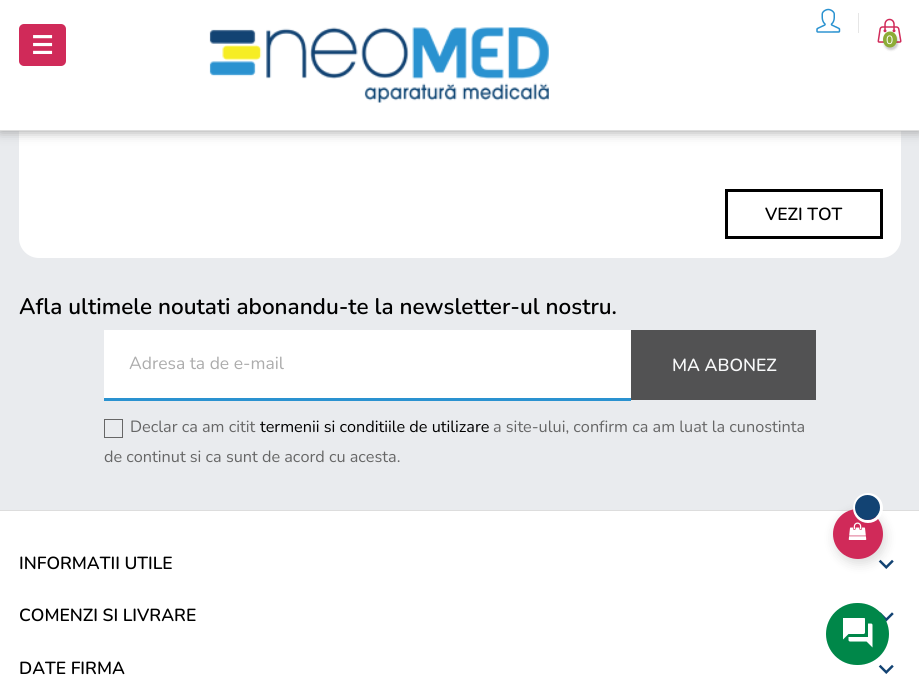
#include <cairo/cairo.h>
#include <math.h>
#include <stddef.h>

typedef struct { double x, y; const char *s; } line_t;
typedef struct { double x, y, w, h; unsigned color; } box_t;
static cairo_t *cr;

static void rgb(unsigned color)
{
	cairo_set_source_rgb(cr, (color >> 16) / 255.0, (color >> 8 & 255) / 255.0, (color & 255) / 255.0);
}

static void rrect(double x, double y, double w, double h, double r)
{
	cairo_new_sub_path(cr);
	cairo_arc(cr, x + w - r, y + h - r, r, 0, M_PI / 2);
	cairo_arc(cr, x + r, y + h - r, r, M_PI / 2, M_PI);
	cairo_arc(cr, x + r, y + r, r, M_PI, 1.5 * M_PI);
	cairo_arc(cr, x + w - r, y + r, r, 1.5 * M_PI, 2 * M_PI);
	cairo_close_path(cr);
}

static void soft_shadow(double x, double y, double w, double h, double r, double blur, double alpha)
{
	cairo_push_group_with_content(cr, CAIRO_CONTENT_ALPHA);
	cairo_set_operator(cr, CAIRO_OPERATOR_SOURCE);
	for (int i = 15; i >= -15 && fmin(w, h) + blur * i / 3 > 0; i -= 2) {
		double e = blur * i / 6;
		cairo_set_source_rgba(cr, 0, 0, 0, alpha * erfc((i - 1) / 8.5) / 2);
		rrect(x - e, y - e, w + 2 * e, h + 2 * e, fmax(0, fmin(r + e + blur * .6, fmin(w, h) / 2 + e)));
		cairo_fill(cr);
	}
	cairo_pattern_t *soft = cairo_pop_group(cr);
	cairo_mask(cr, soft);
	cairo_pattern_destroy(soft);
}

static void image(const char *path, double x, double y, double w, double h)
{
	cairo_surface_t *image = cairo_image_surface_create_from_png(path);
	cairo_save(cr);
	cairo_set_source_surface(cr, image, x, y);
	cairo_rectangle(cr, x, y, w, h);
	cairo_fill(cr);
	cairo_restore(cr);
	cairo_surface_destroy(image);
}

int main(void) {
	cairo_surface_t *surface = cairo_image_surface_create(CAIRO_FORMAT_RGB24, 919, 696);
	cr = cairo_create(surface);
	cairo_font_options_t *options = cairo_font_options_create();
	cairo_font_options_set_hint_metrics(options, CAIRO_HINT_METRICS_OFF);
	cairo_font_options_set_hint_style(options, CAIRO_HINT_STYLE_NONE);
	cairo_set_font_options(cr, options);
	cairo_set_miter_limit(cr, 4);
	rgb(0xffffff);
	cairo_paint(cr);
	rgb(0xe9ebee);
	cairo_rectangle(cr, 0, 131, 919, 379);
	cairo_fill(cr);
	rgb(0xffffff);
	rrect(19, -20, 882, 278, 20);
	cairo_fill(cr);
	rgb(0x999999);
	soft_shadow(0, 0, 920, 131, 0, 6, 1);
	rgb(0xffffff);
	cairo_rectangle(cr, 0, 0, 919, 130);
	cairo_fill(cr);
	rgb(0xdddddd);
	cairo_rectangle(cr, 0, 130, 919, 1);
	cairo_fill(cr);
	rgb(0xd02a59);
	rrect(19, 24, 47, 42, 5);
	cairo_fill(cr);
	image("img/1.png", 209, 27, 340, 76);
	image("img/2.png", 816, 8, 25, 25);
	rgb(0xe6e6e6);
	cairo_rectangle(cr, 858, 13, 1, 20);
	cairo_fill(cr);
	image("img/3.png", 877, 18, 25, 25);
	rgb(0x000000);
	soft_shadow(884, 34, 14, 16, 7, 1, 0.2);
	rgb(0x8cac36);
	cairo_new_path(cr);
	cairo_move_to(cr, 890, 31.5);
	cairo_curve_to(cr, 894, 31.5, 897, 35, 897, 39.5);
	cairo_curve_to(cr, 897, 44, 894, 47.5, 890, 47.5);
	cairo_curve_to(cr, 886, 47.5, 883, 44, 883, 39.5);
	cairo_curve_to(cr, 883, 35, 886, 31.5, 890, 31.5);
	cairo_close_path(cr);
	cairo_fill(cr);
	rgb(0xdddddd);
	cairo_rectangle(cr, 0, 510, 919, 1);
	cairo_fill(cr);
	cairo_rectangle(cr, 726.5, 190.5, 155, 47);
	rgb(0x000000);
	cairo_set_line_width(cr, 3);
	cairo_stroke(cr);
	{
		static const box_t items[] = {
			{104, 330, 527, 68, 0xffffff},
			{104, 398, 527, 3, 0x2a92d0},
			{631, 330, 185, 70, 0x525253},
		};
		for (size_t i = 0; i < sizeof items / sizeof *items; i++) {
			rgb(items[i].color);
			cairo_rectangle(cr, items[i].x, items[i].y, items[i].w, items[i].h);
			cairo_fill(cr);
		}
	}
	cairo_rectangle(cr, 104.5, 419.5, 18, 18);
	rgb(0x666666);
	cairo_set_line_width(cr, 1);
	cairo_stroke(cr);
	image("img/4.png", 878, 559, 16, 10);
	image("img/5.png", 880, 612, 14, 10);
	image("img/4.png", 878, 664, 16, 10);
	rgb(0x000000);
	soft_shadow(835, 513, 50, 50, 25, 6, 0.15);
	rgb(0xd02a59);
	cairo_arc(cr, 858, 534, 25, 0, 2 * M_PI);
	cairo_fill(cr);
	image("img/6.png", 848, 522, 19, 18);
	cairo_arc(cr, 868, 508, 13.5, 0, 2 * M_PI);
	rgb(0xffffff);
	cairo_set_line_width(cr, 3);
	cairo_stroke(cr);
	rgb(0x124373);
	cairo_arc(cr, 867.5, 507.5, 12.5, 0, 2 * M_PI);
	cairo_fill(cr);
	rgb(0x008749);
	rrect(826, 603, 63, 62, 31);
	cairo_fill(cr);
	image("img/7.png", 843, 618, 30, 30);
	cairo_select_font_face(cr, "DejaVu Sans", CAIRO_FONT_SLANT_NORMAL, CAIRO_FONT_WEIGHT_BOLD);
	cairo_set_font_size(cr, 25);
	rgb(0xffffff);
	cairo_move_to(cr, 31, 54);
	cairo_show_text(cr, "☰");
	cairo_select_font_face(cr, "Nunito", CAIRO_FONT_SLANT_NORMAL, CAIRO_FONT_WEIGHT_NORMAL);
	cairo_set_font_size(cr, 12);
	cairo_move_to(cr, 886, 44);
	cairo_show_text(cr, "0");
	cairo_select_font_face(cr, "Nunito SemiBold", CAIRO_FONT_SLANT_NORMAL, CAIRO_FONT_WEIGHT_NORMAL);
	cairo_set_font_size(cr, 17.5);
	rgb(0x000000);
	cairo_move_to(cr, 765, 220);
	cairo_show_text(cr, "VEZI TOT");
	cairo_set_font_size(cr, 22.5);
	cairo_move_to(cr, 19, 314);
	cairo_show_text(cr, "Afla ultimele noutati abonandu-te la newsletter-ul nostru.");
	cairo_select_font_face(cr, "Nunito", CAIRO_FONT_SLANT_NORMAL, CAIRO_FONT_WEIGHT_NORMAL);
	cairo_set_font_size(cr, 17.5);
	rgb(0xacacac);
	cairo_move_to(cr, 129, 369);
	cairo_show_text(cr, "Adresa ta de e-mail");
	cairo_select_font_face(cr, "Nunito SemiBold", CAIRO_FONT_SLANT_NORMAL, CAIRO_FONT_WEIGHT_NORMAL);
	rgb(0xf7f8f9);
	cairo_move_to(cr, 672, 371);
	cairo_show_text(cr, "MA ABONEZ");
	cairo_select_font_face(cr, "Nunito", CAIRO_FONT_SLANT_NORMAL, CAIRO_FONT_WEIGHT_NORMAL);
	cairo_set_font_size(cr, 16.25);
	rgb(0x666666);
	cairo_move_to(cr, 130, 432);
	cairo_show_text(cr, "Declar ca am citit");
	rgb(0x000000);
	cairo_move_to(cr, 260, 432);
	cairo_show_text(cr, "termenii si conditiile de utilizare");
	rgb(0x666666);
	cairo_move_to(cr, 493, 432);
	cairo_show_text(cr, "a site-ului, confirm ca am luat la cunostinta");
	cairo_move_to(cr, 104, 462);
	cairo_show_text(cr, "de continut si ca sunt de acord cu acesta.");
	cairo_select_font_face(cr, "Nunito SemiBold", CAIRO_FONT_SLANT_NORMAL, CAIRO_FONT_WEIGHT_NORMAL);
	cairo_set_font_size(cr, 17.5);
	rgb(0x000000);
	{
		static const line_t items[] = {
			{19, 569, "INFORMATII UTILE"},
			{19, 621, "COMENZI SI LIVRARE"},
			{19, 674, "DATE FIRMA"},
		};
		for (size_t i = 0; i < sizeof items / sizeof *items; i++) {
			cairo_move_to(cr, items[i].x, items[i].y);
			cairo_show_text(cr, items[i].s);
		}
	}
	cairo_surface_write_to_png(surface, "page.png");
	cairo_font_options_destroy(options);
	cairo_destroy(cr);
	cairo_surface_destroy(surface);
	return 0;
}
